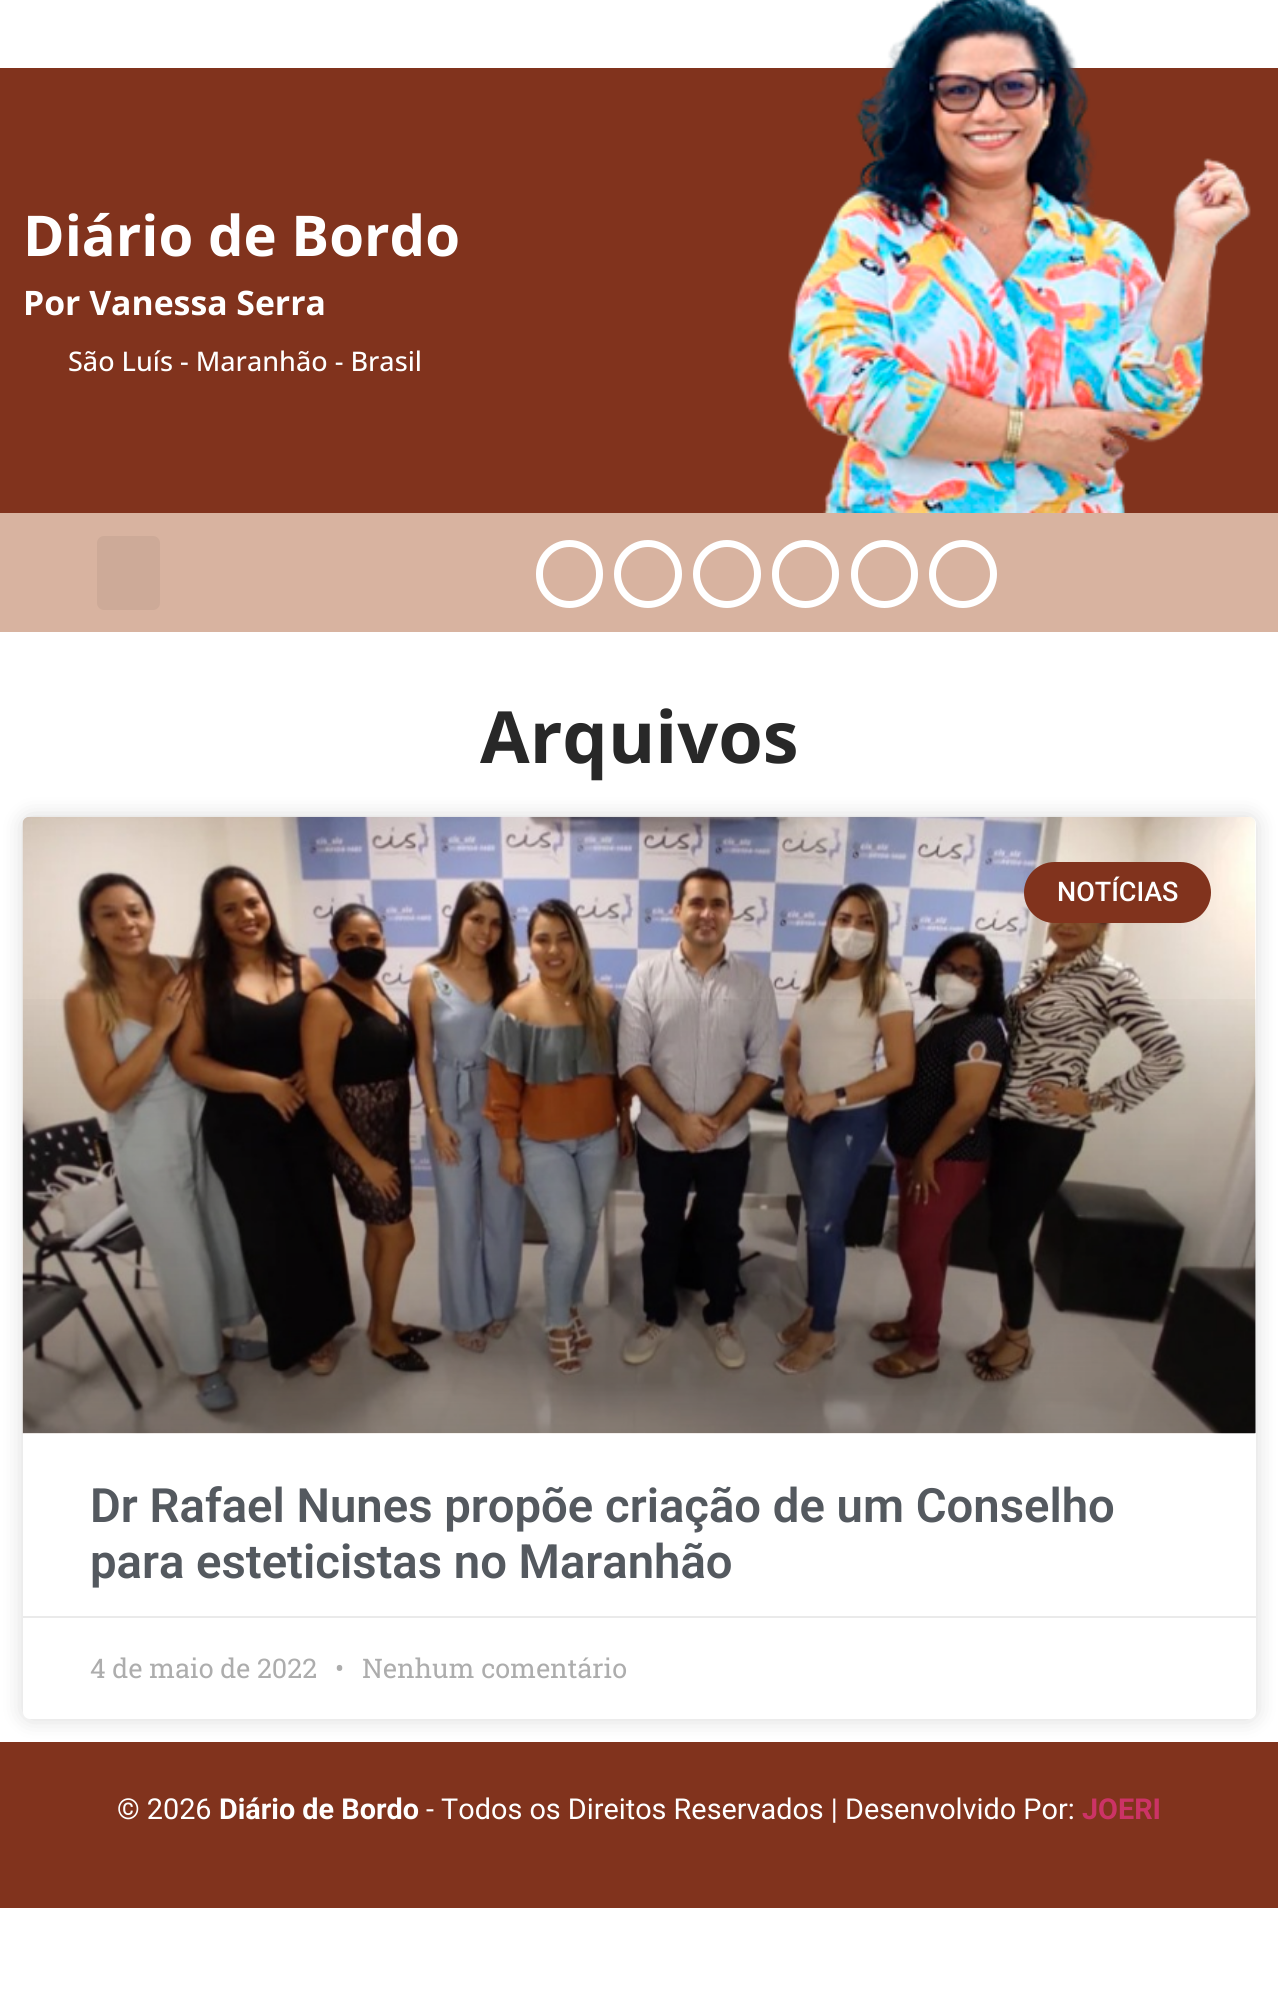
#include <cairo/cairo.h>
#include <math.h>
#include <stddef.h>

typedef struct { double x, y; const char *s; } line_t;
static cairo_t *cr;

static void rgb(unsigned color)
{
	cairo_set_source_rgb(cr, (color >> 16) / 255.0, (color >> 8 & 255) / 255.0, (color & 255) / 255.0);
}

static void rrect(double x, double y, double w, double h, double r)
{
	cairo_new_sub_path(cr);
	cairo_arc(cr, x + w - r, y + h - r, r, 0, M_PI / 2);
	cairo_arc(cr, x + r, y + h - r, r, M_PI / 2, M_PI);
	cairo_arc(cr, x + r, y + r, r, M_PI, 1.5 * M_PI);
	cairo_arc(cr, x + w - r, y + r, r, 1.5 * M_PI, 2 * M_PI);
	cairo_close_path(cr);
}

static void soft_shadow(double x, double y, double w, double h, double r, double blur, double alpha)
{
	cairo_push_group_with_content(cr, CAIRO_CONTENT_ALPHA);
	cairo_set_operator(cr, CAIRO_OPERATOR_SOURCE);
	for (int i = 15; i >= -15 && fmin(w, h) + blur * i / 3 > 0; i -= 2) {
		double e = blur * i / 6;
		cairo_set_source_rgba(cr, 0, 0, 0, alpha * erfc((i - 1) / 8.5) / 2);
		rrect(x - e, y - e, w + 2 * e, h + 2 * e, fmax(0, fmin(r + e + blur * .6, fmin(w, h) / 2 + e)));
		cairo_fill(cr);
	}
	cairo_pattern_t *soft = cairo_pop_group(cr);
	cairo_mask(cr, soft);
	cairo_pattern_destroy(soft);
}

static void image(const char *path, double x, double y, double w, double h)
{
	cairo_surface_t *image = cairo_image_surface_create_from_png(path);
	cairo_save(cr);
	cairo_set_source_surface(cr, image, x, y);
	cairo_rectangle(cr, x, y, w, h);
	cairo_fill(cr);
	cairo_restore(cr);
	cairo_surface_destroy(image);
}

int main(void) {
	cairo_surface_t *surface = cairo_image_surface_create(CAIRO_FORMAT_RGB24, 1278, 1994);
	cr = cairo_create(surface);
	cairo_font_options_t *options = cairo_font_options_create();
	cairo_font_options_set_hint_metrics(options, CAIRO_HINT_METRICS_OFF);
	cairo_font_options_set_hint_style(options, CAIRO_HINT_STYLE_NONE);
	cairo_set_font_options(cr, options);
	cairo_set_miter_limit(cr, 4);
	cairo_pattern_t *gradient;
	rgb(0xffffff);
	cairo_paint(cr);
	rgb(0x81331d);
	cairo_rectangle(cr, 0, 68, 1278, 445);
	cairo_fill(cr);
	image("img/1.png", 788, 0, 463, 513);
	rgb(0xd8b3a0);
	cairo_rectangle(cr, 0, 513, 1278, 119);
	cairo_fill(cr);
	rgb(0xcdaa98);
	rrect(97, 536, 63, 74, 7);
	cairo_fill(cr);
	rrect(539.5, 543.5, 60, 61, 30);
	rgb(0xffffff);
	cairo_set_line_width(cr, 7);
	cairo_stroke(cr);
	cairo_arc(cr, 648, 574, 30.5, 0, 2 * M_PI);
	cairo_stroke(cr);
	cairo_arc(cr, 727, 574, 30.5, 0, 2 * M_PI);
	cairo_stroke(cr);
	rrect(775.5, 543.5, 60, 61, 30);
	cairo_stroke(cr);
	rrect(854.5, 543.5, 60, 61, 30);
	cairo_stroke(cr);
	cairo_arc(cr, 963, 574, 30.5, 0, 2 * M_PI);
	cairo_stroke(cr);
	rgb(0x000000);
	soft_shadow(23, 817, 1233, 902, 7, 11, 0.15);
	rgb(0xffffff);
	rrect(23, 817, 1233, 902, 7);
	cairo_fill(cr);
	image("img/2.png", 22, 816, 1234, 618);
	gradient = cairo_pattern_create_linear(639, 1433, 639, 817);
	cairo_pattern_add_color_stop_rgba(gradient, 0, 0, 0, 0, 0.35);
	cairo_pattern_add_color_stop_rgba(gradient, 0.75, 0, 0, 0, 0);
	cairo_set_source(cr, gradient);
	cairo_pattern_destroy(gradient);
	cairo_rectangle(cr, 23, 999, 1233, 434);
	cairo_fill(cr);
	rgb(0x81331d);
	rrect(1024, 862, 187, 61, 30.5);
	cairo_fill(cr);
	rgb(0xeaeaea);
	cairo_rectangle(cr, 23, 1616, 1233, 2);
	cairo_fill(cr);
	rgb(0x81331d);
	cairo_rectangle(cr, 0, 1742, 1278, 166);
	cairo_fill(cr);
	cairo_select_font_face(cr, "Open Sans", CAIRO_FONT_SLANT_NORMAL, CAIRO_FONT_WEIGHT_BOLD);
	cairo_set_font_size(cr, 56.25);
	rgb(0xffffff);
	cairo_move_to(cr, 23, 256);
	cairo_show_text(cr, "Diário de Bordo");
	cairo_set_font_size(cr, 33.75);
	cairo_move_to(cr, 23, 315);
	cairo_show_text(cr, "Por Vanessa Serra");
	cairo_select_font_face(cr, "Open Sans Medium", CAIRO_FONT_SLANT_NORMAL, CAIRO_FONT_WEIGHT_NORMAL);
	cairo_set_font_size(cr, 27);
	cairo_move_to(cr, 68, 371);
	cairo_show_text(cr, "São Luís - Maranhão - Brasil");
	cairo_select_font_face(cr, "Open Sans", CAIRO_FONT_SLANT_NORMAL, CAIRO_FONT_WEIGHT_BOLD);
	cairo_set_font_size(cr, 72);
	rgb(0x282828);
	cairo_move_to(cr, 480, 763);
	cairo_show_text(cr, "Arquivos");
	cairo_select_font_face(cr, "Roboto Medium", CAIRO_FONT_SLANT_NORMAL, CAIRO_FONT_WEIGHT_NORMAL);
	cairo_set_font_size(cr, 27);
	rgb(0xffffff);
	cairo_move_to(cr, 1057, 901);
	cairo_show_text(cr, "NOTÍCIAS");
	cairo_select_font_face(cr, "Roboto SemiBold", CAIRO_FONT_SLANT_NORMAL, CAIRO_FONT_WEIGHT_NORMAL);
	cairo_set_font_size(cr, 47.25);
	rgb(0x54595f);
	cairo_move_to(cr, 90, 1522);
	cairo_show_text(cr, "Dr Rafael Nunes propõe criação de um Conselho");
	cairo_move_to(cr, 90, 1578);
	cairo_show_text(cr, "para esteticistas no Maranhão");
	cairo_select_font_face(cr, "Roboto Slab", CAIRO_FONT_SLANT_NORMAL, CAIRO_FONT_WEIGHT_NORMAL);
	cairo_set_font_size(cr, 27);
	rgb(0xadadad);
	{
		static const line_t items[] = {
			{90, 1678, "4 de maio de 2022"},
			{335, 1678, "•"},
			{362, 1678, "Nenhum comentário"},
		};
		for (size_t i = 0; i < sizeof items / sizeof *items; i++) {
			cairo_move_to(cr, items[i].x, items[i].y);
			cairo_show_text(cr, items[i].s);
		}
	}
	cairo_select_font_face(cr, "Roboto", CAIRO_FONT_SLANT_NORMAL, CAIRO_FONT_WEIGHT_NORMAL);
	cairo_set_font_size(cr, 28.8);
	rgb(0xffffff);
	cairo_move_to(cr, 117, 1819);
	cairo_show_text(cr, "© 2026");
	cairo_select_font_face(cr, "Roboto", CAIRO_FONT_SLANT_NORMAL, CAIRO_FONT_WEIGHT_BOLD);
	cairo_move_to(cr, 219, 1819);
	cairo_show_text(cr, "Diário de Bordo");
	cairo_select_font_face(cr, "Roboto", CAIRO_FONT_SLANT_NORMAL, CAIRO_FONT_WEIGHT_NORMAL);
	cairo_move_to(cr, 426, 1819);
	cairo_show_text(cr, "- Todos os Direitos Reservados | Desenvolvido Por:");
	cairo_select_font_face(cr, "Roboto", CAIRO_FONT_SLANT_NORMAL, CAIRO_FONT_WEIGHT_BOLD);
	rgb(0xcc3366);
	cairo_move_to(cr, 1082, 1819);
	cairo_show_text(cr, "JOERI");
	cairo_surface_write_to_png(surface, "page.png");
	cairo_font_options_destroy(options);
	cairo_destroy(cr);
	cairo_surface_destroy(surface);
	return 0;
}
